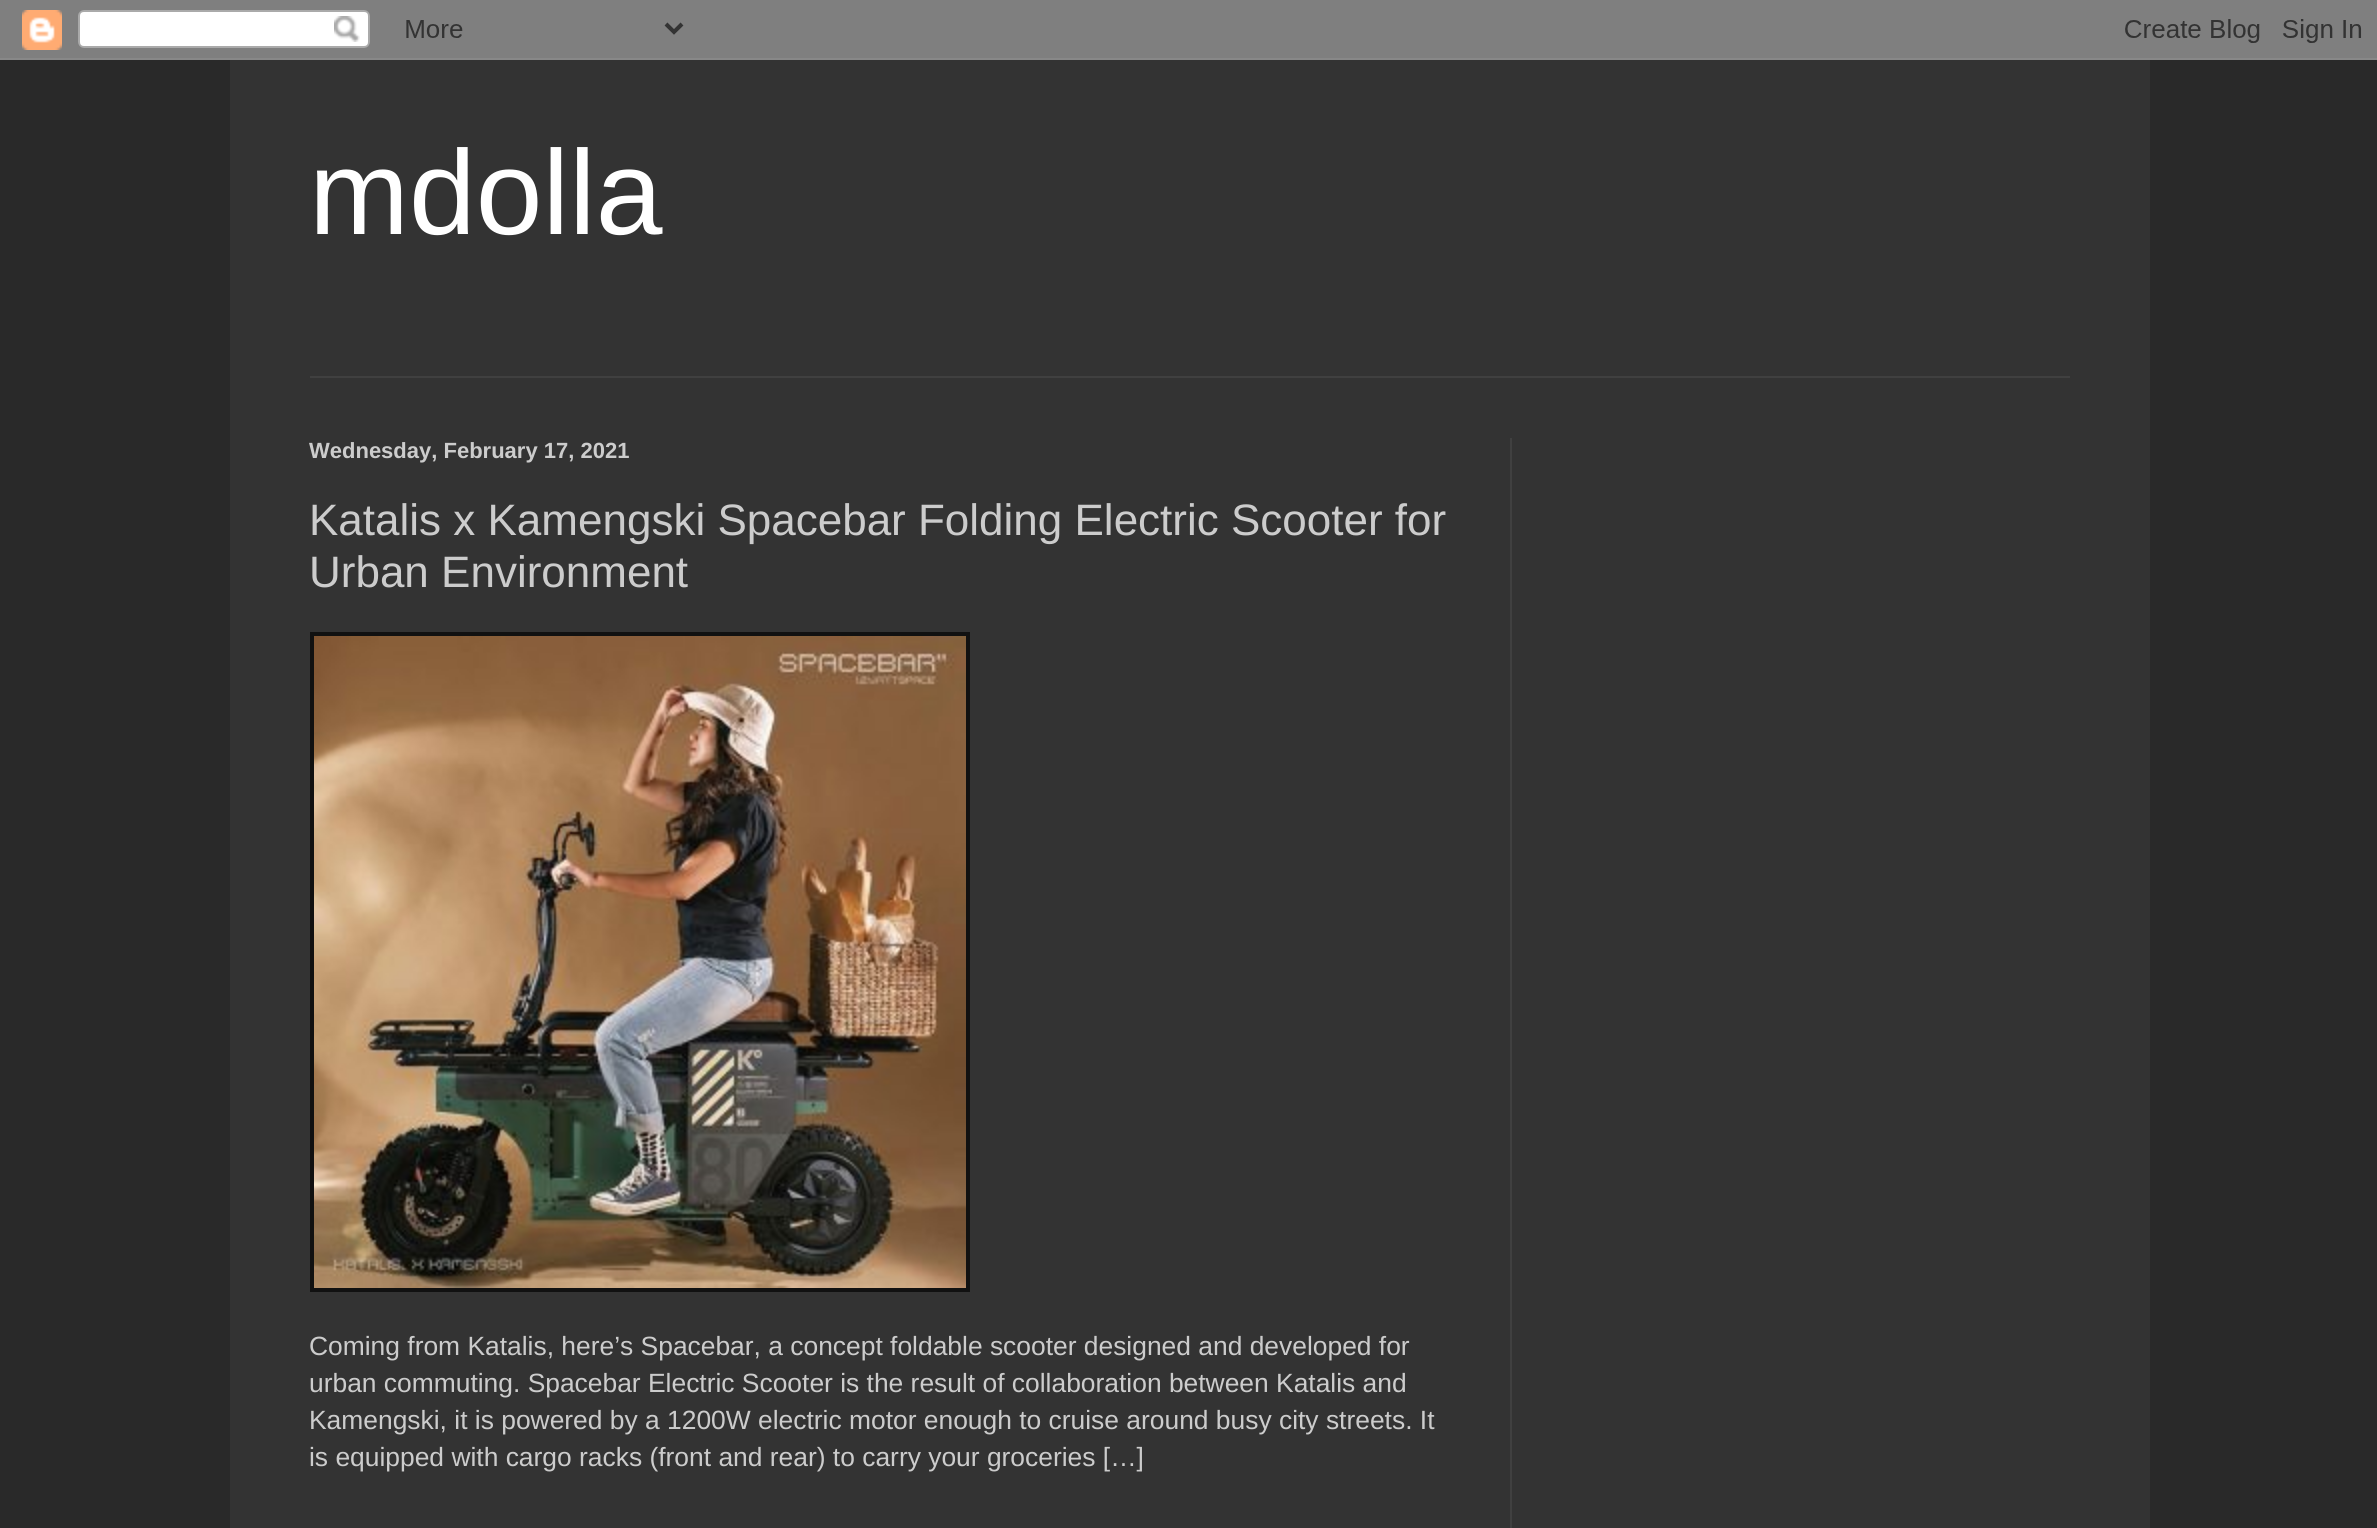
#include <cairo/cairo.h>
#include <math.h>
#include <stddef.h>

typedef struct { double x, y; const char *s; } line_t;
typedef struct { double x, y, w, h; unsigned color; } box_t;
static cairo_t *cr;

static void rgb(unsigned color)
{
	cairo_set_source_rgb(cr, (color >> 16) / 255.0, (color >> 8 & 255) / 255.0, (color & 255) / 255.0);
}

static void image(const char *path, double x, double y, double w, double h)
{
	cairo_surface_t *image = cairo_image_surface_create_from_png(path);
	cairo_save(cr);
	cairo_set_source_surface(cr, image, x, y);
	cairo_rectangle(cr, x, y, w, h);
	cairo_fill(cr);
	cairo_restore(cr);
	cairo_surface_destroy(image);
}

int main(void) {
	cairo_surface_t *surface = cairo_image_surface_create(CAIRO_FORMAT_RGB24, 2377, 1528);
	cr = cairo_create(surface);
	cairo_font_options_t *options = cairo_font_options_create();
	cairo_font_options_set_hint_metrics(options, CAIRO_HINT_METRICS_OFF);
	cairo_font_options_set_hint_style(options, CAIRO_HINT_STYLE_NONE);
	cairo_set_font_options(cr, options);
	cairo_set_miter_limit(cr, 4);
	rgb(0x292929);
	cairo_paint(cr);
	image("img/1.png", 0, 0, 2377, 60);
	{
		static const box_t items[] = {
			{230, 60, 1920, 1468, 0x333333},
			{310, 376, 1760, 2, 0x404040},
			{310, 632, 660, 660, 0x111111},
		};
		for (size_t i = 0; i < sizeof items / sizeof *items; i++) {
			rgb(items[i].color);
			cairo_rectangle(cr, items[i].x, items[i].y, items[i].w, items[i].h);
			cairo_fill(cr);
		}
	}
	image("img/2.png", 314, 636, 652, 652);
	rgb(0x404040);
	cairo_rectangle(cr, 1510, 438, 2, 1090);
	cairo_fill(cr);
	cairo_select_font_face(cr, "Liberation Sans", CAIRO_FONT_SLANT_NORMAL, CAIRO_FONT_WEIGHT_NORMAL);
	cairo_set_font_size(cr, 120);
	rgb(0xffffff);
	cairo_move_to(cr, 309, 234);
	cairo_show_text(cr, "mdolla");
	cairo_select_font_face(cr, "Liberation Sans", CAIRO_FONT_SLANT_NORMAL, CAIRO_FONT_WEIGHT_BOLD);
	cairo_set_font_size(cr, 22);
	rgb(0xcccccc);
	cairo_move_to(cr, 309, 458);
	cairo_show_text(cr, "Wednesday, February 17, 2021");
	cairo_select_font_face(cr, "Liberation Sans", CAIRO_FONT_SLANT_NORMAL, CAIRO_FONT_WEIGHT_NORMAL);
	cairo_set_font_size(cr, 44);
	cairo_move_to(cr, 309, 535);
	cairo_show_text(cr, "Katalis x Kamengski Spacebar Folding Electric Scooter for");
	cairo_move_to(cr, 309, 587);
	cairo_show_text(cr, "Urban Environment");
	cairo_set_font_size(cr, 26.4);
	{
		static const line_t items[] = {
			{309, 1355, "Coming from Katalis, here’s Spacebar, a concept foldable scooter designed and developed for"},
			{309, 1392, "urban commuting. Spacebar Electric Scooter is the result of collaboration between Katalis and"},
			{309, 1429, "Kamengski, it is powered by a 1200W electric motor enough to cruise around busy city streets. It"},
			{309, 1466, "is equipped with cargo racks (front and rear) to carry your groceries […]"},
		};
		for (size_t i = 0; i < sizeof items / sizeof *items; i++) {
			cairo_move_to(cr, items[i].x, items[i].y);
			cairo_show_text(cr, items[i].s);
		}
	}
	cairo_surface_write_to_png(surface, "page.png");
	cairo_font_options_destroy(options);
	cairo_destroy(cr);
	cairo_surface_destroy(surface);
	return 0;
}
